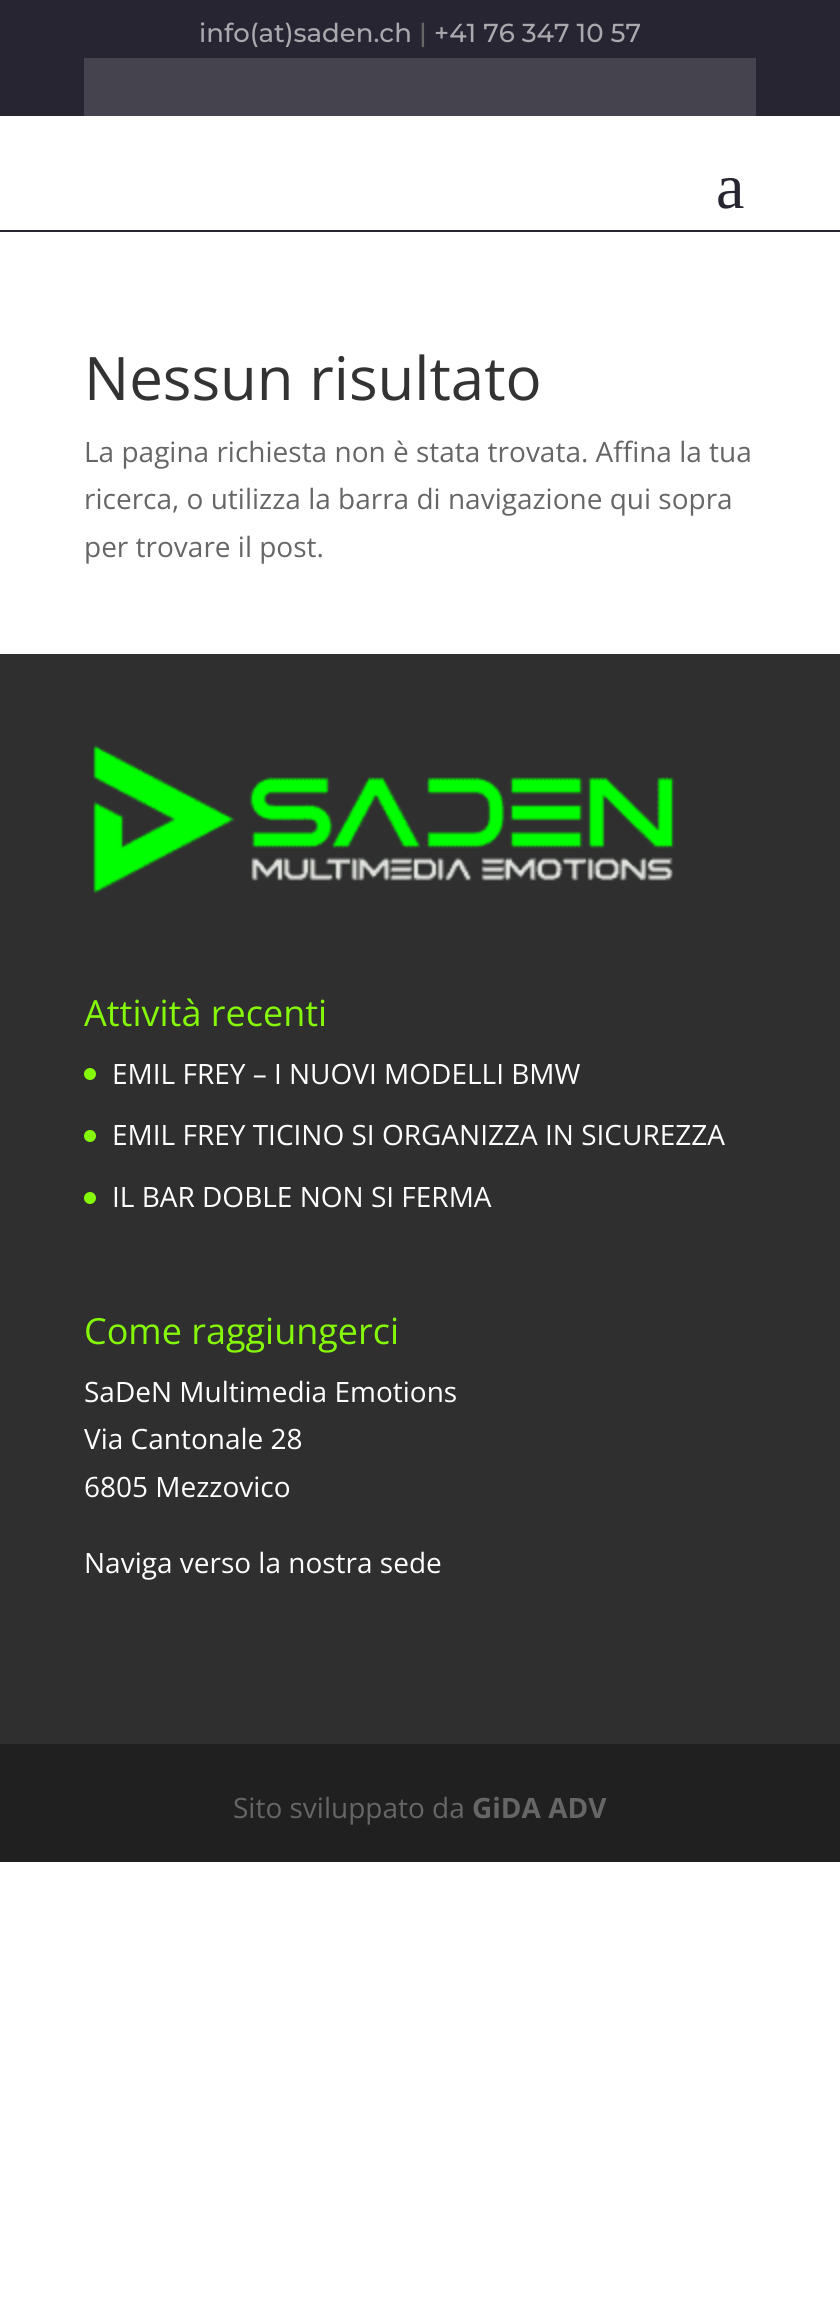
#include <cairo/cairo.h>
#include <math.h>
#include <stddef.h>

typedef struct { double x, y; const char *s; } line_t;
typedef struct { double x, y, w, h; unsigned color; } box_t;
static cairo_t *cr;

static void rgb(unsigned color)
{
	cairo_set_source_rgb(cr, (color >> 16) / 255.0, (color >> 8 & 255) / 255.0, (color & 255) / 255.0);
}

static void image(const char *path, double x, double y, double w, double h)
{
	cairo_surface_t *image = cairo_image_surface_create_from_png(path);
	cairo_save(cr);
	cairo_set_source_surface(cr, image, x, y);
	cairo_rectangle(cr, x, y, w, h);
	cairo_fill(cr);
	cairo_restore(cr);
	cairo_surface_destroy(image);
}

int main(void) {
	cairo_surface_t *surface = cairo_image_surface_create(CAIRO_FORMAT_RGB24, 840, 2321);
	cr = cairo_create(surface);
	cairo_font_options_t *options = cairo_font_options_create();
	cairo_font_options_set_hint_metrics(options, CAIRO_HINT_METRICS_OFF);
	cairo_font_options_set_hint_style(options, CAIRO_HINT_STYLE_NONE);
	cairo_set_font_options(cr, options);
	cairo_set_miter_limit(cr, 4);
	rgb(0xffffff);
	cairo_paint(cr);
	{
		static const box_t items[] = {
			{0, 0, 840, 116, 0x272531},
			{84, 58, 672, 58, 0x45444e},
			{0, 230, 840, 2, 0x272531},
			{0, 654, 840, 1090, 0x2f2f2f},
		};
		for (size_t i = 0; i < sizeof items / sizeof *items; i++) {
			rgb(items[i].color);
			cairo_rectangle(cr, items[i].x, items[i].y, items[i].w, items[i].h);
			cairo_fill(cr);
		}
	}
	image("img/1.png", 93, 745, 582, 149);
	rgb(0x84f808);
	cairo_arc(cr, 90, 1074, 6, 0, 2 * M_PI);
	cairo_fill(cr);
	cairo_arc(cr, 90, 1136, 6, 0, 2 * M_PI);
	cairo_fill(cr);
	cairo_arc(cr, 90, 1198, 6, 0, 2 * M_PI);
	cairo_fill(cr);
	rgb(0x202020);
	cairo_rectangle(cr, 0, 1744, 840, 118);
	cairo_fill(cr);
	cairo_select_font_face(cr, "Montserrat Thin", CAIRO_FONT_SLANT_NORMAL, CAIRO_FONT_WEIGHT_NORMAL);
	cairo_set_font_size(cr, 26);
	rgb(0xa9a8ad);
	cairo_move_to(cr, 199, 42);
	cairo_show_text(cr, "info(at)saden.ch");
	rgb(0x666666);
	cairo_move_to(cr, 419, 42);
	cairo_show_text(cr, "|");
	rgb(0xa9a8ad);
	cairo_move_to(cr, 434, 42);
	cairo_show_text(cr, "+41 76 347 10 57");
	cairo_select_font_face(cr, "Liberation Serif", CAIRO_FONT_SLANT_NORMAL, CAIRO_FONT_WEIGHT_NORMAL);
	cairo_set_font_size(cr, 64);
	rgb(0x272531);
	cairo_move_to(cr, 716, 208);
	cairo_show_text(cr, "a");
	cairo_select_font_face(cr, "Open Sans", CAIRO_FONT_SLANT_NORMAL, CAIRO_FONT_WEIGHT_NORMAL);
	cairo_set_font_size(cr, 60);
	rgb(0x333333);
	cairo_move_to(cr, 84, 400);
	cairo_show_text(cr, "Nessun risultato");
	cairo_set_font_size(cr, 28);
	rgb(0x666666);
	{
		static const line_t items[] = {
			{84, 462, "La pagina richiesta non è stata trovata. Affina la tua"},
			{84, 509, "ricerca, o utilizza la barra di navigazione qui sopra"},
			{84, 557, "per trovare il post."},
		};
		for (size_t i = 0; i < sizeof items / sizeof *items; i++) {
			cairo_move_to(cr, items[i].x, items[i].y);
			cairo_show_text(cr, items[i].s);
		}
	}
	cairo_set_font_size(cr, 36);
	rgb(0x84f808);
	cairo_move_to(cr, 84, 1026);
	cairo_show_text(cr, "Attività recenti");
	cairo_set_font_size(cr, 28);
	rgb(0xffffff);
	{
		static const line_t items[] = {
			{112, 1084, "EMIL FREY – I NUOVI MODELLI BMW"},
			{112, 1145, "EMIL FREY TICINO SI ORGANIZZA IN SICUREZZA"},
			{112, 1207, "IL BAR DOBLE NON SI FERMA"},
		};
		for (size_t i = 0; i < sizeof items / sizeof *items; i++) {
			cairo_move_to(cr, items[i].x, items[i].y);
			cairo_show_text(cr, items[i].s);
		}
	}
	cairo_set_font_size(cr, 36);
	rgb(0x84f808);
	cairo_move_to(cr, 84, 1344);
	cairo_show_text(cr, "Come raggiungerci");
	cairo_set_font_size(cr, 28);
	rgb(0xffffff);
	{
		static const line_t items[] = {
			{84, 1402, "SaDeN Multimedia Emotions"},
			{84, 1449, "Via Cantonale 28"},
			{84, 1497, "6805 Mezzovico"},
			{84, 1573, "Naviga verso la nostra sede"},
		};
		for (size_t i = 0; i < sizeof items / sizeof *items; i++) {
			cairo_move_to(cr, items[i].x, items[i].y);
			cairo_show_text(cr, items[i].s);
		}
	}
	rgb(0x666666);
	cairo_move_to(cr, 233, 1818);
	cairo_show_text(cr, "Sito sviluppato da");
	cairo_select_font_face(cr, "Open Sans", CAIRO_FONT_SLANT_NORMAL, CAIRO_FONT_WEIGHT_BOLD);
	cairo_move_to(cr, 472, 1818);
	cairo_show_text(cr, "GiDA ADV");
	cairo_surface_write_to_png(surface, "page.png");
	cairo_font_options_destroy(options);
	cairo_destroy(cr);
	cairo_surface_destroy(surface);
	return 0;
}
